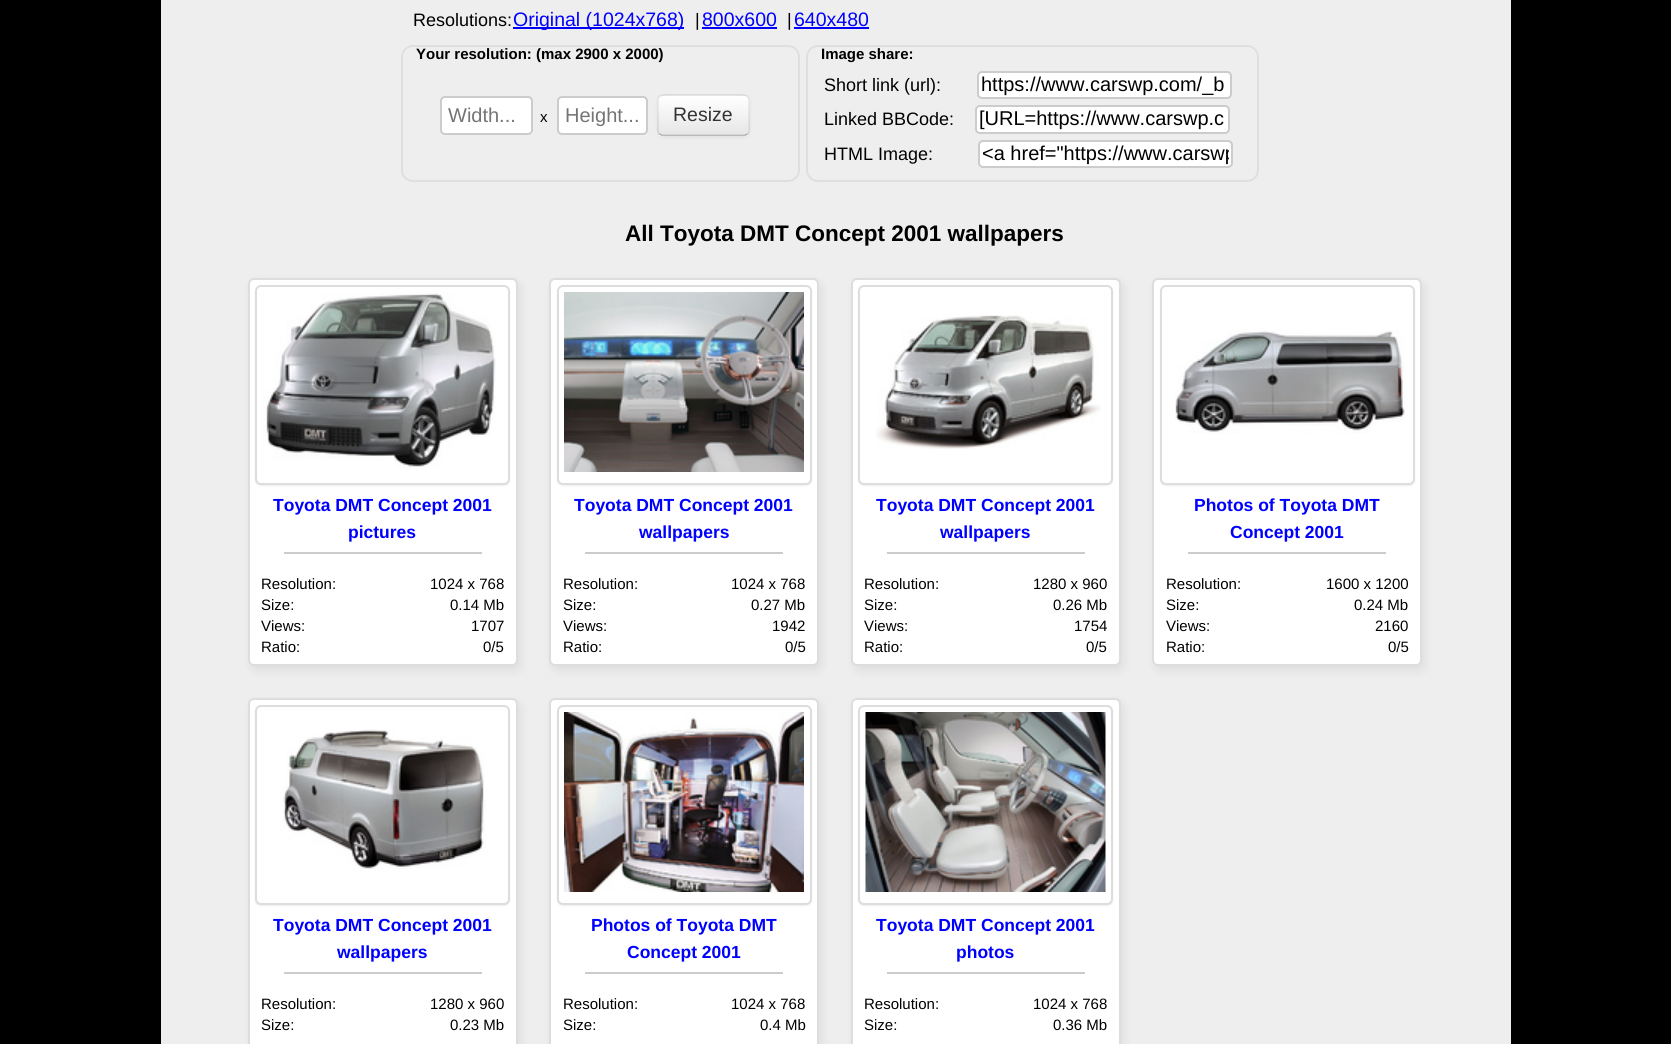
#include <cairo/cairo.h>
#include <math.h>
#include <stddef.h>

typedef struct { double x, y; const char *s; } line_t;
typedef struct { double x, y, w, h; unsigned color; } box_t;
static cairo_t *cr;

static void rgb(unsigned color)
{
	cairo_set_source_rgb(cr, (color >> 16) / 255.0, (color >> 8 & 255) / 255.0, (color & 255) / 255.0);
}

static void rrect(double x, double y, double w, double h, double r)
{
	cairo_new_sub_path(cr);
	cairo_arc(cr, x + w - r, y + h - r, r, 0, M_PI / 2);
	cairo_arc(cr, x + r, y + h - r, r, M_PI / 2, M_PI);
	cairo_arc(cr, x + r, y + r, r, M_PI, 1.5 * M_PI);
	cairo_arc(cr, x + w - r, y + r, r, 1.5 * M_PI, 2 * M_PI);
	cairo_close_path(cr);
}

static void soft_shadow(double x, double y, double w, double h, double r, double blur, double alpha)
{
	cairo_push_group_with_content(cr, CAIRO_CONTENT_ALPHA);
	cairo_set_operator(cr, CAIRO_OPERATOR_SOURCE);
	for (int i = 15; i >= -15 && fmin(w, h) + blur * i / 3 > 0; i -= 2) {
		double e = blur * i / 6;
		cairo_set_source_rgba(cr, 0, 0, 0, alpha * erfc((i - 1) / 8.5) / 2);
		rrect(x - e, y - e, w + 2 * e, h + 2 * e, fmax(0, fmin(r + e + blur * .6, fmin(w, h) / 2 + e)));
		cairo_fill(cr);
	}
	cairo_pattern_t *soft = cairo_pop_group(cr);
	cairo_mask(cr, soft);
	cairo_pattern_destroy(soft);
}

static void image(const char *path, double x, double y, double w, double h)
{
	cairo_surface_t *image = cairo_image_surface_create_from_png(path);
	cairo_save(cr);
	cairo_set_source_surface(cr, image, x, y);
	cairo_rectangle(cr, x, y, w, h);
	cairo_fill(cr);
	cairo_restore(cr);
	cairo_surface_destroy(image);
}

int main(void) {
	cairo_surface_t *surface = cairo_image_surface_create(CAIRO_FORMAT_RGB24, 1671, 1044);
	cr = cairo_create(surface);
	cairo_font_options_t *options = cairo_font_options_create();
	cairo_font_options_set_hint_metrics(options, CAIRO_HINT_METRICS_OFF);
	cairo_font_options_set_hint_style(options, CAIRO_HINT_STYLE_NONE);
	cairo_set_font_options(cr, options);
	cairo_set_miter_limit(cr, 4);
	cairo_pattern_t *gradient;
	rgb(0x000000);
	cairo_paint(cr);
	{
		static const box_t items[] = {
			{161, 0, 1350, 1044, 0xeeeeee},
			{513, 27, 171, 2, 0x0000ff},
			{702, 27, 75, 2, 0x0000ff},
			{794, 27, 75, 2, 0x0000ff},
		};
		for (size_t i = 0; i < sizeof items / sizeof *items; i++) {
			rgb(items[i].color);
			cairo_rectangle(cr, items[i].x, items[i].y, items[i].w, items[i].h);
			cairo_fill(cr);
		}
	}
	rrect(402, 46, 397, 135, 11);
	rgb(0xdfdfdf);
	cairo_stroke(cr);
	rgb(0xffffff);
	rrect(441, 97, 91, 37, 4);
	cairo_fill_preserve(cr);
	rgb(0xcccccc);
	cairo_stroke(cr);
	rgb(0xffffff);
	rrect(558, 97, 89, 37, 4);
	cairo_fill_preserve(cr);
	rgb(0xcccccc);
	cairo_stroke(cr);
	rgb(0x000000);
	soft_shadow(657, 96, 93, 42, 6, 1.5, 0.05);
	rgb(0xf5f5f5);
	rrect(657, 95, 93, 42, 6);
	cairo_fill(cr);
	cairo_save(cr);
	rrect(657, 95, 93, 42, 6);
	cairo_clip(cr);
	gradient = cairo_pattern_create_linear(704, 96, 704, 135);
	cairo_pattern_add_color_stop_rgba(gradient, 0, 1, 1, 1, 1);
	cairo_pattern_add_color_stop_rgba(gradient, 1, 0.902, 0.902, 0.902, 1);
	cairo_set_source(cr, gradient);
	cairo_pattern_destroy(gradient);
	cairo_rectangle(cr, 657, 96, 93, 39);
	cairo_fill(cr);
	cairo_restore(cr);
	cairo_set_source_rgba(cr, 1, 1, 1, 0.2);
	cairo_new_path(cr);
	cairo_move_to(cr, 663, 98);
	cairo_line_to(cr, 744, 98);
	cairo_curve_to(cr, 749, 98, 748, 104, 748, 107);
	cairo_line_to(cr, 748, 133);
	cairo_curve_to(cr, 749, 132, 749, 131, 749, 130);
	cairo_line_to(cr, 749, 101);
	cairo_curve_to(cr, 749, 98, 747, 96, 744, 96);
	cairo_line_to(cr, 664, 96);
	cairo_curve_to(cr, 662, 96, 660, 98, 659, 100);
	cairo_curve_to(cr, 660, 99, 662, 98, 663, 98);
	cairo_close_path(cr);
	cairo_fill(cr);
	cairo_new_path(cr);
	cairo_move_to(cr, 747.5, 134);
	cairo_line_to(cr, 744.5, 135.5);
	cairo_line_to(cr, 662.5, 135.5);
	cairo_line_to(cr, 659.5, 134);
	cairo_set_source_rgba(cr, 0, 0, 0, 0.25);
	cairo_set_line_width(cr, 1.5);
	cairo_stroke(cr);
	cairo_new_path(cr);
	cairo_move_to(cr, 659.5, 134);
	cairo_curve_to(cr, 657, 132, 658, 128.5, 658, 125.5);
	cairo_line_to(cr, 658, 115.5);
	cairo_curve_to(cr, 658, 93.5, 654.5, 95, 676.5, 95);
	cairo_line_to(cr, 730.5, 95);
	cairo_curve_to(cr, 752.5, 95, 749, 93.5, 749, 115.5);
	cairo_line_to(cr, 749, 125.5);
	cairo_curve_to(cr, 749, 128.5, 750, 132, 747.5, 134);
	cairo_set_source_rgba(cr, 0, 0, 0, 0.1);
	cairo_stroke(cr);
	rrect(807, 46, 451, 135, 11);
	rgb(0xdfdfdf);
	cairo_set_line_width(cr, 2);
	cairo_stroke(cr);
	rgb(0xffffff);
	rrect(978, 72, 253, 26, 4);
	cairo_fill_preserve(cr);
	rgb(0xcccccc);
	cairo_stroke(cr);
	rgb(0xffffff);
	rrect(976, 106, 253, 27, 4);
	cairo_fill_preserve(cr);
	rgb(0xcccccc);
	cairo_stroke(cr);
	rgb(0xffffff);
	rrect(979, 141, 253, 26, 4);
	cairo_fill_preserve(cr);
	rgb(0xcccccc);
	cairo_stroke(cr);
	rgb(0x000000);
	soft_shadow(251, 282, 270, 389, 6, 5, 0.07);
	rgb(0xffffff);
	rrect(249, 279, 268, 386, 5);
	cairo_fill_preserve(cr);
	rgb(0xdddddd);
	cairo_stroke(cr);
	rgb(0x000000);
	soft_shadow(255, 287, 255, 199, 6, 1, 0.07);
	rgb(0xffffff);
	rrect(256, 286, 253, 198, 5);
	cairo_fill_preserve(cr);
	rgb(0xdddddd);
	cairo_stroke(cr);
	image("img/1.png", 263, 293, 233, 176);
	rgb(0xcccccc);
	cairo_rectangle(cr, 284, 552, 198, 2);
	cairo_fill(cr);
	rgb(0x000000);
	soft_shadow(552, 282, 270, 389, 6, 5, 0.07);
	rgb(0xffffff);
	rrect(550, 279, 268, 386, 5);
	cairo_fill_preserve(cr);
	rgb(0xdddddd);
	cairo_stroke(cr);
	rgb(0x000000);
	soft_shadow(557, 287, 255, 199, 6, 1, 0.07);
	rgb(0xffffff);
	rrect(558, 286, 253, 198, 5);
	cairo_fill_preserve(cr);
	rgb(0xdddddd);
	cairo_stroke(cr);
	image("img/2.png", 564, 292, 240, 180);
	rgb(0xcccccc);
	cairo_rectangle(cr, 585, 552, 198, 2);
	cairo_fill(cr);
	rgb(0x000000);
	soft_shadow(854, 282, 270, 389, 6, 5, 0.07);
	rgb(0xffffff);
	rrect(852, 279, 268, 386, 5);
	cairo_fill_preserve(cr);
	rgb(0xdddddd);
	cairo_stroke(cr);
	rgb(0x000000);
	soft_shadow(858, 287, 255, 199, 6, 1, 0.07);
	rgb(0xffffff);
	rrect(859, 286, 253, 198, 5);
	cairo_fill_preserve(cr);
	rgb(0xdddddd);
	cairo_stroke(cr);
	image("img/3.png", 876, 315, 225, 134);
	rgb(0xcccccc);
	cairo_rectangle(cr, 887, 552, 198, 2);
	cairo_fill(cr);
	rgb(0x000000);
	soft_shadow(1155, 282, 270, 389, 6, 5, 0.07);
	rgb(0xffffff);
	rrect(1153, 279, 268, 386, 5);
	cairo_fill_preserve(cr);
	rgb(0xdddddd);
	cairo_stroke(cr);
	rgb(0x000000);
	soft_shadow(1160, 287, 255, 199, 6, 1, 0.07);
	rgb(0xffffff);
	rrect(1161, 286, 253, 198, 5);
	cairo_fill_preserve(cr);
	rgb(0xdddddd);
	cairo_stroke(cr);
	image("img/4.png", 1175, 330, 231, 104);
	rgb(0xcccccc);
	cairo_rectangle(cr, 1188, 552, 198, 2);
	cairo_fill(cr);
	rgb(0x000000);
	soft_shadow(251, 702, 270, 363, 6, 5, 0.07);
	rgb(0xffffff);
	rrect(249, 699, 268, 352, 5);
	cairo_fill_preserve(cr);
	rgb(0xdddddd);
	cairo_stroke(cr);
	rgb(0x000000);
	soft_shadow(255, 707, 255, 199, 6, 1, 0.07);
	rgb(0xffffff);
	rrect(256, 706, 253, 198, 5);
	cairo_fill_preserve(cr);
	rgb(0xdddddd);
	cairo_stroke(cr);
	image("img/5.png", 282, 729, 204, 140);
	rgb(0xcccccc);
	cairo_rectangle(cr, 284, 972, 198, 2);
	cairo_fill(cr);
	rgb(0x000000);
	soft_shadow(552, 702, 270, 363, 6, 5, 0.07);
	rgb(0xffffff);
	rrect(550, 699, 268, 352, 5);
	cairo_fill_preserve(cr);
	rgb(0xdddddd);
	cairo_stroke(cr);
	rgb(0x000000);
	soft_shadow(557, 707, 255, 199, 6, 1, 0.07);
	rgb(0xffffff);
	rrect(558, 706, 253, 198, 5);
	cairo_fill_preserve(cr);
	rgb(0xdddddd);
	cairo_stroke(cr);
	image("img/6.png", 564, 712, 240, 180);
	rgb(0xcccccc);
	cairo_rectangle(cr, 585, 972, 198, 2);
	cairo_fill(cr);
	rgb(0x000000);
	soft_shadow(854, 702, 270, 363, 6, 5, 0.07);
	rgb(0xffffff);
	rrect(852, 699, 268, 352, 5);
	cairo_fill_preserve(cr);
	rgb(0xdddddd);
	cairo_stroke(cr);
	rgb(0x000000);
	soft_shadow(858, 707, 255, 199, 6, 1, 0.07);
	rgb(0xffffff);
	rrect(859, 706, 253, 198, 5);
	cairo_fill_preserve(cr);
	rgb(0xdddddd);
	cairo_stroke(cr);
	image("img/7.png", 865, 712, 241, 180);
	rgb(0xcccccc);
	cairo_rectangle(cr, 887, 972, 198, 2);
	cairo_fill(cr);
	cairo_select_font_face(cr, "Liberation Sans", CAIRO_FONT_SLANT_NORMAL, CAIRO_FONT_WEIGHT_NORMAL);
	cairo_set_font_size(cr, 18);
	rgb(0x000000);
	cairo_move_to(cr, 413, 26);
	cairo_show_text(cr, "Resolutions:");
	cairo_set_font_size(cr, 19.5);
	rgb(0x0000ff);
	cairo_move_to(cr, 513, 26);
	cairo_show_text(cr, "Original (1024x768)");
	cairo_set_font_size(cr, 18);
	rgb(0x000000);
	cairo_move_to(cr, 695, 26);
	cairo_show_text(cr, "|");
	cairo_set_font_size(cr, 19.5);
	rgb(0x0000ff);
	cairo_move_to(cr, 702, 26);
	cairo_show_text(cr, "800x600");
	cairo_set_font_size(cr, 18);
	rgb(0x000000);
	cairo_move_to(cr, 787, 26);
	cairo_show_text(cr, "|");
	cairo_set_font_size(cr, 19.5);
	rgb(0x0000ff);
	cairo_move_to(cr, 794, 26);
	cairo_show_text(cr, "640x480");
	cairo_select_font_face(cr, "Liberation Sans", CAIRO_FONT_SLANT_NORMAL, CAIRO_FONT_WEIGHT_BOLD);
	cairo_set_font_size(cr, 15);
	rgb(0x000000);
	cairo_move_to(cr, 416, 59);
	cairo_show_text(cr, "Your resolution: (max 2900 x 2000)");
	cairo_select_font_face(cr, "Liberation Sans", CAIRO_FONT_SLANT_NORMAL, CAIRO_FONT_WEIGHT_NORMAL);
	cairo_set_font_size(cr, 20);
	rgb(0x757575);
	cairo_move_to(cr, 448, 122);
	cairo_show_text(cr, "Width...");
	cairo_set_font_size(cr, 15);
	rgb(0x000000);
	cairo_move_to(cr, 540, 122);
	cairo_show_text(cr, "x");
	cairo_set_font_size(cr, 20);
	rgb(0x757575);
	cairo_move_to(cr, 565, 122);
	cairo_show_text(cr, "Height...");
	cairo_set_font_size(cr, 19.5);
	rgb(0x333333);
	cairo_move_to(cr, 673, 121);
	cairo_show_text(cr, "Resize");
	cairo_select_font_face(cr, "Liberation Sans", CAIRO_FONT_SLANT_NORMAL, CAIRO_FONT_WEIGHT_BOLD);
	cairo_set_font_size(cr, 15);
	rgb(0x000000);
	cairo_move_to(cr, 821, 59);
	cairo_show_text(cr, "Image share:");
	cairo_select_font_face(cr, "Liberation Sans", CAIRO_FONT_SLANT_NORMAL, CAIRO_FONT_WEIGHT_NORMAL);
	cairo_set_font_size(cr, 18);
	cairo_move_to(cr, 824, 91);
	cairo_show_text(cr, "Short link (url):");
	cairo_set_font_size(cr, 20);
	cairo_move_to(cr, 981, 91);
	cairo_show_text(cr, "https://www.carswp.com/_b");
	cairo_set_font_size(cr, 18);
	cairo_move_to(cr, 824, 125);
	cairo_show_text(cr, "Linked BBCode:");
	cairo_set_font_size(cr, 20);
	cairo_move_to(cr, 979, 125);
	cairo_show_text(cr, "[URL=https://www.carswp.c");
	cairo_set_font_size(cr, 18);
	cairo_move_to(cr, 824, 160);
	cairo_show_text(cr, "HTML Image:");
	cairo_save(cr);
	cairo_rectangle(cr, 983, 143, 246, 22);
	cairo_clip(cr);
	cairo_set_font_size(cr, 20);
	cairo_move_to(cr, 982, 160);
	cairo_show_text(cr, "<a href=\"https://www.carswp");
	cairo_restore(cr);
	cairo_select_font_face(cr, "Liberation Sans", CAIRO_FONT_SLANT_NORMAL, CAIRO_FONT_WEIGHT_BOLD);
	cairo_set_font_size(cr, 22.5);
	cairo_move_to(cr, 625, 241);
	cairo_show_text(cr, "All Toyota DMT Concept 2001 wallpapers");
	cairo_set_font_size(cr, 17.5);
	rgb(0x0000ff);
	cairo_move_to(cr, 273, 511);
	cairo_show_text(cr, "Toyota DMT Concept 2001");
	cairo_move_to(cr, 348, 538);
	cairo_show_text(cr, "pictures");
	cairo_select_font_face(cr, "Liberation Sans", CAIRO_FONT_SLANT_NORMAL, CAIRO_FONT_WEIGHT_NORMAL);
	cairo_set_font_size(cr, 15);
	rgb(0x000000);
	{
		static const line_t items[] = {
			{261, 589, "Resolution:"},
			{430, 589, "1024 x 768"},
			{261, 610, "Size:"},
			{450, 610, "0.14 Mb"},
			{261, 631, "Views:"},
			{471, 631, "1707"},
			{261, 652, "Ratio:"},
			{483, 652, "0/5"},
		};
		for (size_t i = 0; i < sizeof items / sizeof *items; i++) {
			cairo_move_to(cr, items[i].x, items[i].y);
			cairo_show_text(cr, items[i].s);
		}
	}
	cairo_select_font_face(cr, "Liberation Sans", CAIRO_FONT_SLANT_NORMAL, CAIRO_FONT_WEIGHT_BOLD);
	cairo_set_font_size(cr, 17.5);
	rgb(0x0000ff);
	cairo_move_to(cr, 574, 511);
	cairo_show_text(cr, "Toyota DMT Concept 2001");
	cairo_move_to(cr, 639, 538);
	cairo_show_text(cr, "wallpapers");
	cairo_select_font_face(cr, "Liberation Sans", CAIRO_FONT_SLANT_NORMAL, CAIRO_FONT_WEIGHT_NORMAL);
	cairo_set_font_size(cr, 15);
	rgb(0x000000);
	{
		static const line_t items[] = {
			{563, 589, "Resolution:"},
			{731, 589, "1024 x 768"},
			{563, 610, "Size:"},
			{751, 610, "0.27 Mb"},
			{563, 631, "Views:"},
			{772, 631, "1942"},
			{563, 652, "Ratio:"},
			{785, 652, "0/5"},
		};
		for (size_t i = 0; i < sizeof items / sizeof *items; i++) {
			cairo_move_to(cr, items[i].x, items[i].y);
			cairo_show_text(cr, items[i].s);
		}
	}
	cairo_select_font_face(cr, "Liberation Sans", CAIRO_FONT_SLANT_NORMAL, CAIRO_FONT_WEIGHT_BOLD);
	cairo_set_font_size(cr, 17.5);
	rgb(0x0000ff);
	cairo_move_to(cr, 876, 511);
	cairo_show_text(cr, "Toyota DMT Concept 2001");
	cairo_move_to(cr, 940, 538);
	cairo_show_text(cr, "wallpapers");
	cairo_select_font_face(cr, "Liberation Sans", CAIRO_FONT_SLANT_NORMAL, CAIRO_FONT_WEIGHT_NORMAL);
	cairo_set_font_size(cr, 15);
	rgb(0x000000);
	{
		static const line_t items[] = {
			{864, 589, "Resolution:"},
			{1033, 589, "1280 x 960"},
			{864, 610, "Size:"},
			{1053, 610, "0.26 Mb"},
			{864, 631, "Views:"},
			{1074, 631, "1754"},
			{864, 652, "Ratio:"},
			{1086, 652, "0/5"},
		};
		for (size_t i = 0; i < sizeof items / sizeof *items; i++) {
			cairo_move_to(cr, items[i].x, items[i].y);
			cairo_show_text(cr, items[i].s);
		}
	}
	cairo_select_font_face(cr, "Liberation Sans", CAIRO_FONT_SLANT_NORMAL, CAIRO_FONT_WEIGHT_BOLD);
	cairo_set_font_size(cr, 17.5);
	rgb(0x0000ff);
	cairo_move_to(cr, 1194, 511);
	cairo_show_text(cr, "Photos of Toyota DMT");
	cairo_move_to(cr, 1230, 538);
	cairo_show_text(cr, "Concept 2001");
	cairo_select_font_face(cr, "Liberation Sans", CAIRO_FONT_SLANT_NORMAL, CAIRO_FONT_WEIGHT_NORMAL);
	cairo_set_font_size(cr, 15);
	rgb(0x000000);
	{
		static const line_t items[] = {
			{1166, 589, "Resolution:"},
			{1326, 589, "1600 x 1200"},
			{1166, 610, "Size:"},
			{1354, 610, "0.24 Mb"},
			{1166, 631, "Views:"},
			{1375, 631, "2160"},
			{1166, 652, "Ratio:"},
			{1388, 652, "0/5"},
		};
		for (size_t i = 0; i < sizeof items / sizeof *items; i++) {
			cairo_move_to(cr, items[i].x, items[i].y);
			cairo_show_text(cr, items[i].s);
		}
	}
	cairo_select_font_face(cr, "Liberation Sans", CAIRO_FONT_SLANT_NORMAL, CAIRO_FONT_WEIGHT_BOLD);
	cairo_set_font_size(cr, 17.5);
	rgb(0x0000ff);
	cairo_move_to(cr, 273, 931);
	cairo_show_text(cr, "Toyota DMT Concept 2001");
	cairo_move_to(cr, 337, 958);
	cairo_show_text(cr, "wallpapers");
	cairo_select_font_face(cr, "Liberation Sans", CAIRO_FONT_SLANT_NORMAL, CAIRO_FONT_WEIGHT_NORMAL);
	cairo_set_font_size(cr, 15);
	rgb(0x000000);
	{
		static const line_t items[] = {
			{261, 1009, "Resolution:"},
			{430, 1009, "1280 x 960"},
			{261, 1030, "Size:"},
			{450, 1030, "0.23 Mb"},
		};
		for (size_t i = 0; i < sizeof items / sizeof *items; i++) {
			cairo_move_to(cr, items[i].x, items[i].y);
			cairo_show_text(cr, items[i].s);
		}
	}
	cairo_select_font_face(cr, "Liberation Sans", CAIRO_FONT_SLANT_NORMAL, CAIRO_FONT_WEIGHT_BOLD);
	cairo_set_font_size(cr, 17.5);
	rgb(0x0000ff);
	cairo_move_to(cr, 591, 931);
	cairo_show_text(cr, "Photos of Toyota DMT");
	cairo_move_to(cr, 627, 958);
	cairo_show_text(cr, "Concept 2001");
	cairo_select_font_face(cr, "Liberation Sans", CAIRO_FONT_SLANT_NORMAL, CAIRO_FONT_WEIGHT_NORMAL);
	cairo_set_font_size(cr, 15);
	rgb(0x000000);
	{
		static const line_t items[] = {
			{563, 1009, "Resolution:"},
			{731, 1009, "1024 x 768"},
			{563, 1030, "Size:"},
			{760, 1030, "0.4 Mb"},
		};
		for (size_t i = 0; i < sizeof items / sizeof *items; i++) {
			cairo_move_to(cr, items[i].x, items[i].y);
			cairo_show_text(cr, items[i].s);
		}
	}
	cairo_select_font_face(cr, "Liberation Sans", CAIRO_FONT_SLANT_NORMAL, CAIRO_FONT_WEIGHT_BOLD);
	cairo_set_font_size(cr, 17.5);
	rgb(0x0000ff);
	cairo_move_to(cr, 876, 931);
	cairo_show_text(cr, "Toyota DMT Concept 2001");
	cairo_move_to(cr, 956, 958);
	cairo_show_text(cr, "photos");
	cairo_select_font_face(cr, "Liberation Sans", CAIRO_FONT_SLANT_NORMAL, CAIRO_FONT_WEIGHT_NORMAL);
	cairo_set_font_size(cr, 15);
	rgb(0x000000);
	{
		static const line_t items[] = {
			{864, 1009, "Resolution:"},
			{1033, 1009, "1024 x 768"},
			{864, 1030, "Size:"},
			{1053, 1030, "0.36 Mb"},
		};
		for (size_t i = 0; i < sizeof items / sizeof *items; i++) {
			cairo_move_to(cr, items[i].x, items[i].y);
			cairo_show_text(cr, items[i].s);
		}
	}
	cairo_surface_write_to_png(surface, "page.png");
	cairo_font_options_destroy(options);
	cairo_destroy(cr);
	cairo_surface_destroy(surface);
	return 0;
}
